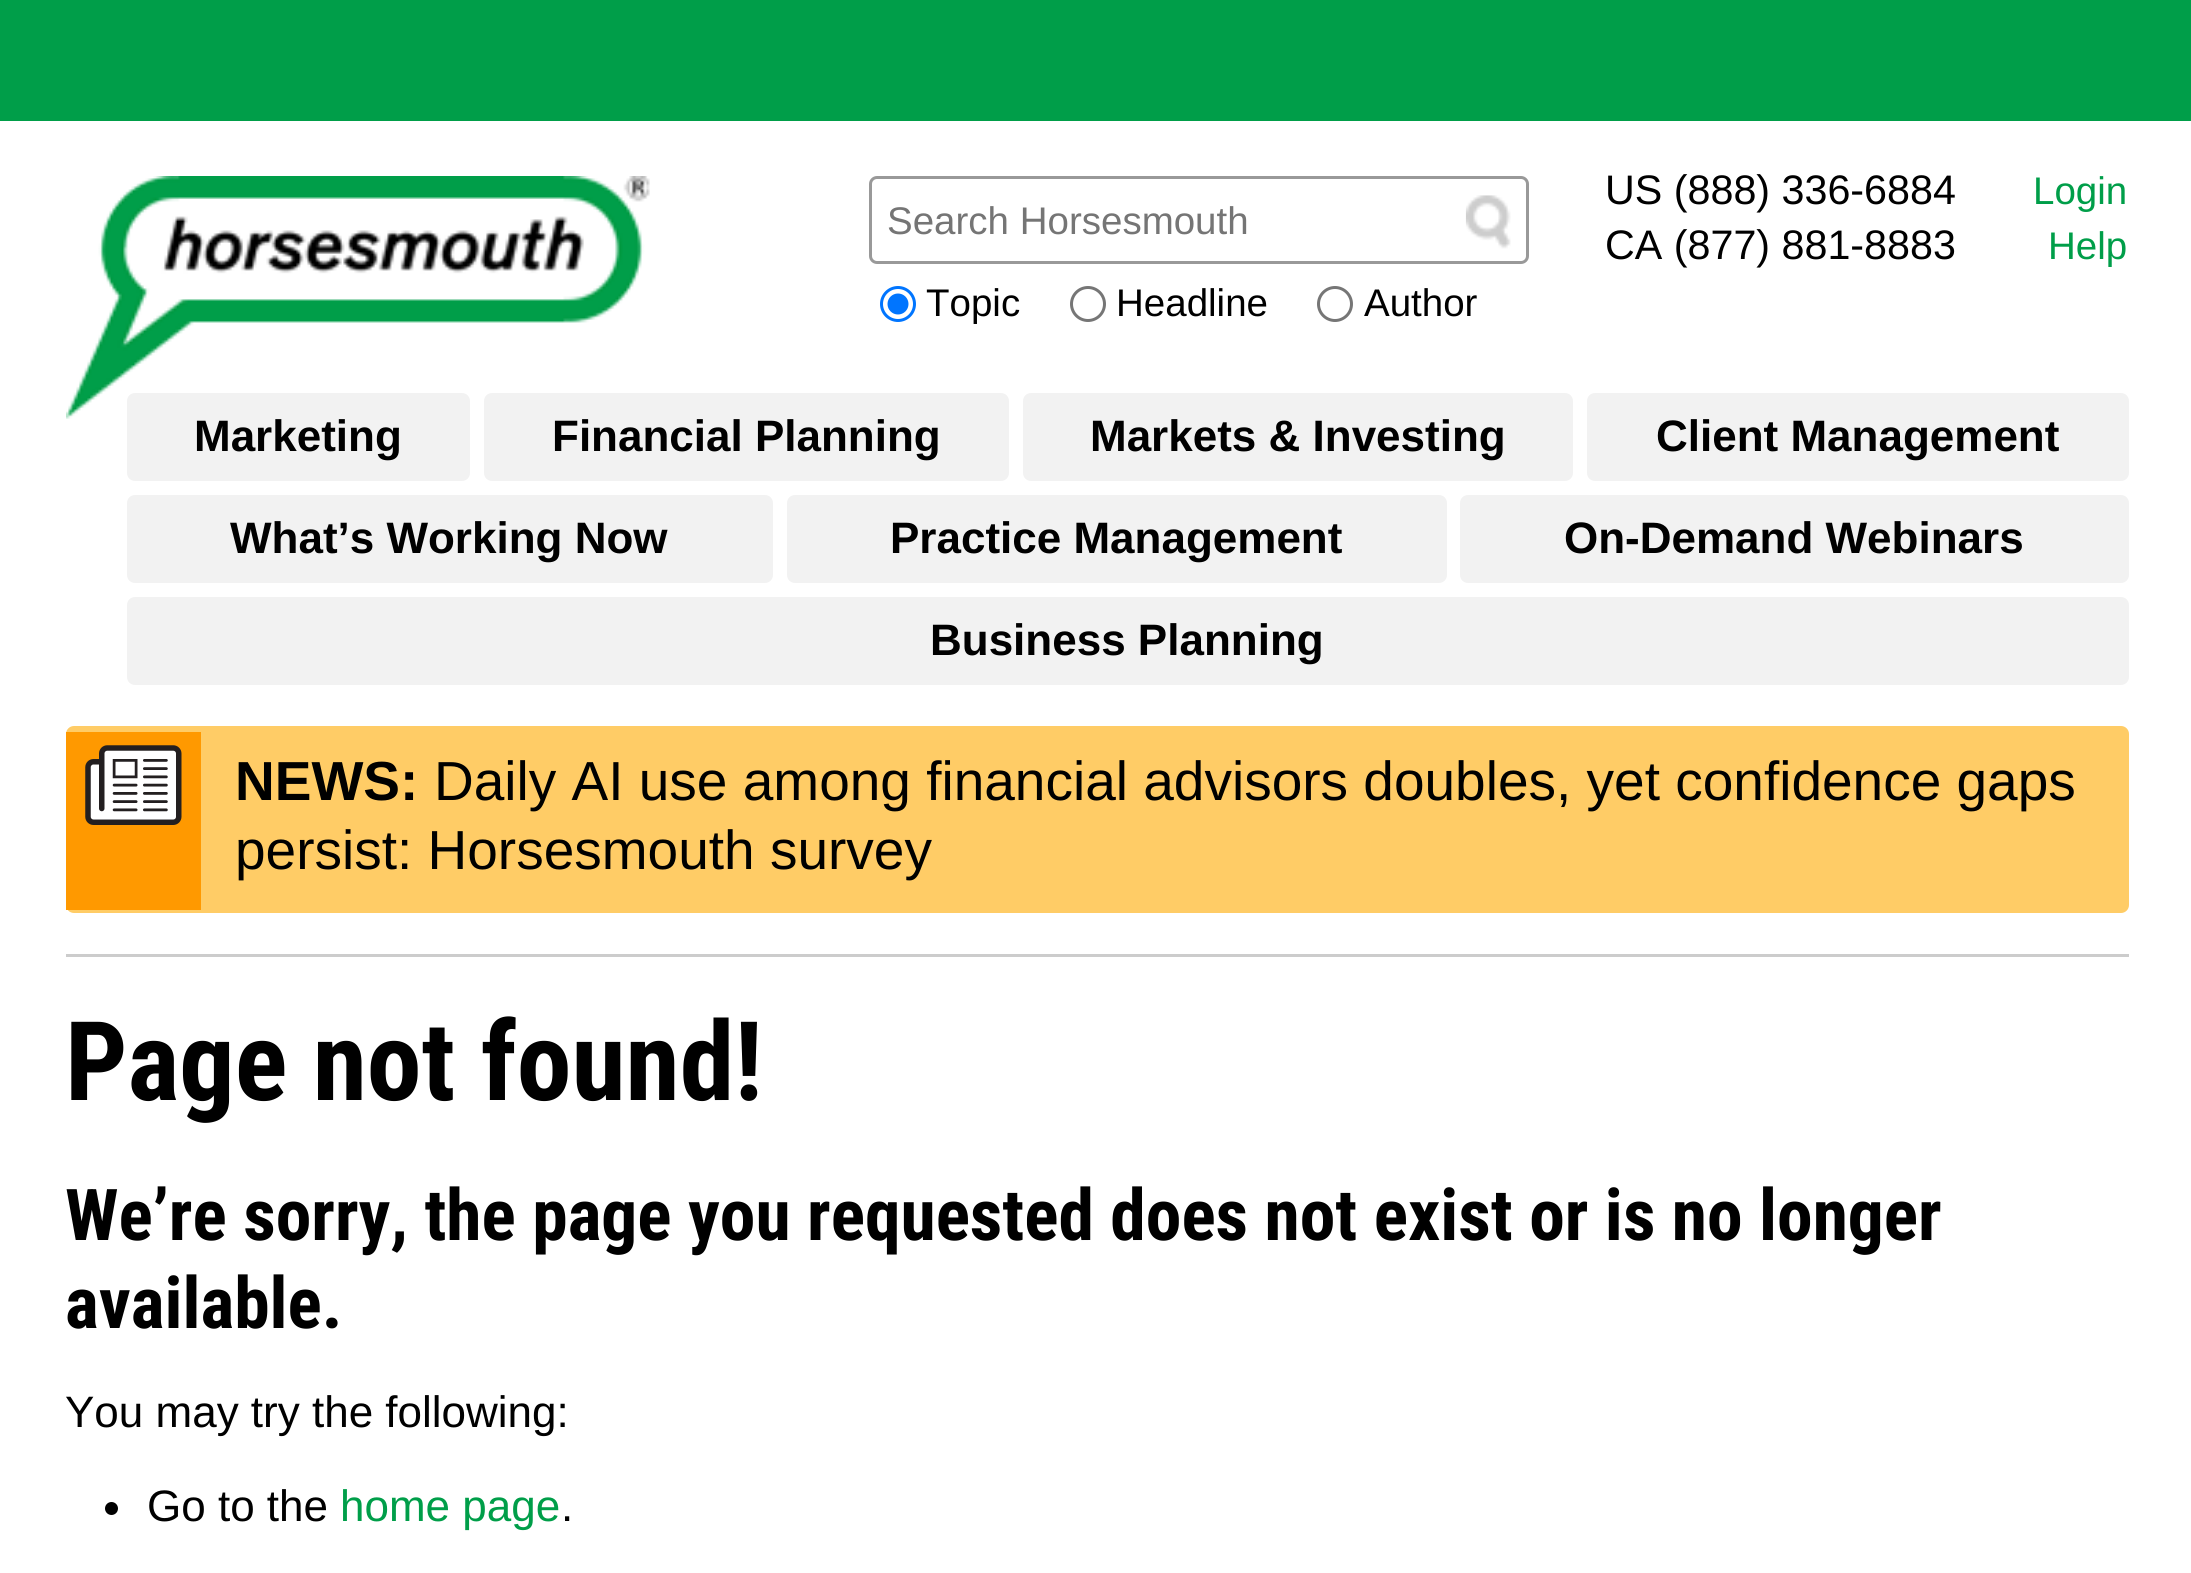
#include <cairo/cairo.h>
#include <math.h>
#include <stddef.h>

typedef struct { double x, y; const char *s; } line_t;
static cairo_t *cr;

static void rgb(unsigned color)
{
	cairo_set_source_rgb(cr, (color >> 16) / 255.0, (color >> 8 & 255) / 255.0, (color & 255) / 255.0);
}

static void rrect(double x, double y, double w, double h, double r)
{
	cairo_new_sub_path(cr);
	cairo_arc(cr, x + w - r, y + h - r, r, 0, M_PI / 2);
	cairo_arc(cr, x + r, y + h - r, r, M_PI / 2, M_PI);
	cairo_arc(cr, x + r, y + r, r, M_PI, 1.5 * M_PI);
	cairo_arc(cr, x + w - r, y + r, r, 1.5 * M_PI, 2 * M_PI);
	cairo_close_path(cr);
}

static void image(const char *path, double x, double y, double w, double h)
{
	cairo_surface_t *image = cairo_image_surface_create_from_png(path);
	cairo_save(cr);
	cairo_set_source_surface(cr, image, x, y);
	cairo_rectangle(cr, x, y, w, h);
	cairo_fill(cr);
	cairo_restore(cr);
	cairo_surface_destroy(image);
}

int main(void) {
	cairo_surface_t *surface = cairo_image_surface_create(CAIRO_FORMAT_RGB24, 2191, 1573);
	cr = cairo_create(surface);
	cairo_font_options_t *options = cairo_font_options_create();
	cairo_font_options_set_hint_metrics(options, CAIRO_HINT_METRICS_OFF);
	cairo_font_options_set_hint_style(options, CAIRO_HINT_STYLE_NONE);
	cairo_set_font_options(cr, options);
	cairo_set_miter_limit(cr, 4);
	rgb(0xffffff);
	cairo_paint(cr);
	rgb(0x009e49);
	cairo_rectangle(cr, 0, 0, 2191, 121);
	cairo_fill(cr);
	image("img/1.png", 66, 176, 584, 243);
	rrect(870.5, 177.5, 657, 85, 6.5);
	rgb(0x999999);
	cairo_set_line_width(cr, 3);
	cairo_stroke(cr);
	image("img/2.png", 1465, 195, 46, 54);
	cairo_arc(cr, 898, 304, 16.5, 0, 2 * M_PI);
	rgb(0x0075ff);
	cairo_stroke(cr);
	cairo_arc(cr, 898, 304, 10.5, 0, 2 * M_PI);
	cairo_fill(cr);
	cairo_arc(cr, 1088, 304, 16.5, 0, 2 * M_PI);
	rgb(0x767676);
	cairo_stroke(cr);
	cairo_arc(cr, 1335, 304, 16.5, 0, 2 * M_PI);
	cairo_stroke(cr);
	rgb(0xf2f2f2);
	rrect(127, 393, 343, 88, 8);
	cairo_fill(cr);
	rrect(484, 393, 525, 88, 8);
	cairo_fill(cr);
	rrect(1023, 393, 550, 88, 8);
	cairo_fill(cr);
	rrect(1587, 393, 542, 88, 8);
	cairo_fill(cr);
	rrect(127, 495, 646, 88, 8);
	cairo_fill(cr);
	rrect(787, 495, 660, 88, 8);
	cairo_fill(cr);
	rrect(1460, 495, 669, 88, 8);
	cairo_fill(cr);
	rrect(127, 597, 2002, 88, 8);
	cairo_fill(cr);
	rgb(0xffcc66);
	rrect(66, 726, 2063, 187, 8);
	cairo_fill(cr);
	rgb(0xff9900);
	cairo_rectangle(cr, 66, 732, 135, 178);
	cairo_fill(cr);
	image("img/3.png", 85, 745, 97, 80);
	rgb(0xcccccc);
	cairo_rectangle(cr, 66, 954, 2063, 3);
	cairo_fill(cr);
	rgb(0x000000);
	cairo_arc(cr, 111.5, 1508.5, 6.5, 0, 2 * M_PI);
	cairo_fill(cr);
	cairo_select_font_face(cr, "Liberation Sans", CAIRO_FONT_SLANT_NORMAL, CAIRO_FONT_WEIGHT_NORMAL);
	cairo_set_font_size(cr, 41.25);
	cairo_move_to(cr, 1605, 204);
	cairo_show_text(cr, "US (888) 336-6884");
	cairo_move_to(cr, 1605, 259);
	cairo_show_text(cr, "CA (877) 881-8883");
	cairo_set_font_size(cr, 38.5);
	rgb(0x009e49);
	cairo_move_to(cr, 2033, 204);
	cairo_show_text(cr, "Login");
	cairo_move_to(cr, 2048, 259);
	cairo_show_text(cr, "Help");
	rgb(0x757575);
	cairo_move_to(cr, 887, 234);
	cairo_show_text(cr, "Search Horsesmouth");
	rgb(0x000000);
	{
		static const line_t items[] = {
			{926, 316, "Topic"},
			{1116, 316, "Headline"},
			{1364, 316, "Author"},
		};
		for (size_t i = 0; i < sizeof items / sizeof *items; i++) {
			cairo_move_to(cr, items[i].x, items[i].y);
			cairo_show_text(cr, items[i].s);
		}
	}
	cairo_select_font_face(cr, "Liberation Sans", CAIRO_FONT_SLANT_NORMAL, CAIRO_FONT_WEIGHT_BOLD);
	cairo_set_font_size(cr, 44);
	{
		static const line_t items[] = {
			{194, 451, "Marketing"},
			{552, 451, "Financial Planning"},
			{1090, 451, "Markets & Investing"},
			{1656, 451, "Client Management"},
			{230, 553, "What’s Working Now"},
			{890, 553, "Practice Management"},
			{1564, 553, "On-Demand Webinars"},
			{930, 655, "Business Planning"},
		};
		for (size_t i = 0; i < sizeof items / sizeof *items; i++) {
			cairo_move_to(cr, items[i].x, items[i].y);
			cairo_show_text(cr, items[i].s);
		}
	}
	cairo_set_font_size(cr, 55);
	cairo_move_to(cr, 235, 800);
	cairo_show_text(cr, "NEWS:");
	cairo_select_font_face(cr, "Liberation Sans", CAIRO_FONT_SLANT_NORMAL, CAIRO_FONT_WEIGHT_NORMAL);
	cairo_move_to(cr, 434, 800);
	cairo_show_text(cr, "Daily AI use among financial advisors doubles, yet confidence gaps");
	cairo_move_to(cr, 235, 869);
	cairo_show_text(cr, "persist: Horsesmouth survey");
	cairo_select_font_face(cr, "Roboto Condensed", CAIRO_FONT_SLANT_NORMAL, CAIRO_FONT_WEIGHT_BOLD);
	cairo_set_font_size(cr, 110);
	cairo_move_to(cr, 65, 1100);
	cairo_show_text(cr, "Page not found!");
	cairo_set_font_size(cr, 71.5);
	cairo_move_to(cr, 65, 1240);
	cairo_show_text(cr, "We’re sorry, the page you requested does not exist or is no longer");
	cairo_move_to(cr, 65, 1328);
	cairo_show_text(cr, "available.");
	cairo_select_font_face(cr, "Liberation Sans", CAIRO_FONT_SLANT_NORMAL, CAIRO_FONT_WEIGHT_NORMAL);
	cairo_set_font_size(cr, 44);
	cairo_move_to(cr, 65, 1427);
	cairo_show_text(cr, "You may try the following:");
	cairo_move_to(cr, 147, 1521);
	cairo_show_text(cr, "Go to the");
	rgb(0x009e49);
	cairo_move_to(cr, 340, 1521);
	cairo_show_text(cr, "home page");
	rgb(0x000000);
	cairo_move_to(cr, 561, 1521);
	cairo_show_text(cr, ".");
	cairo_surface_write_to_png(surface, "page.png");
	cairo_font_options_destroy(options);
	cairo_destroy(cr);
	cairo_surface_destroy(surface);
	return 0;
}
